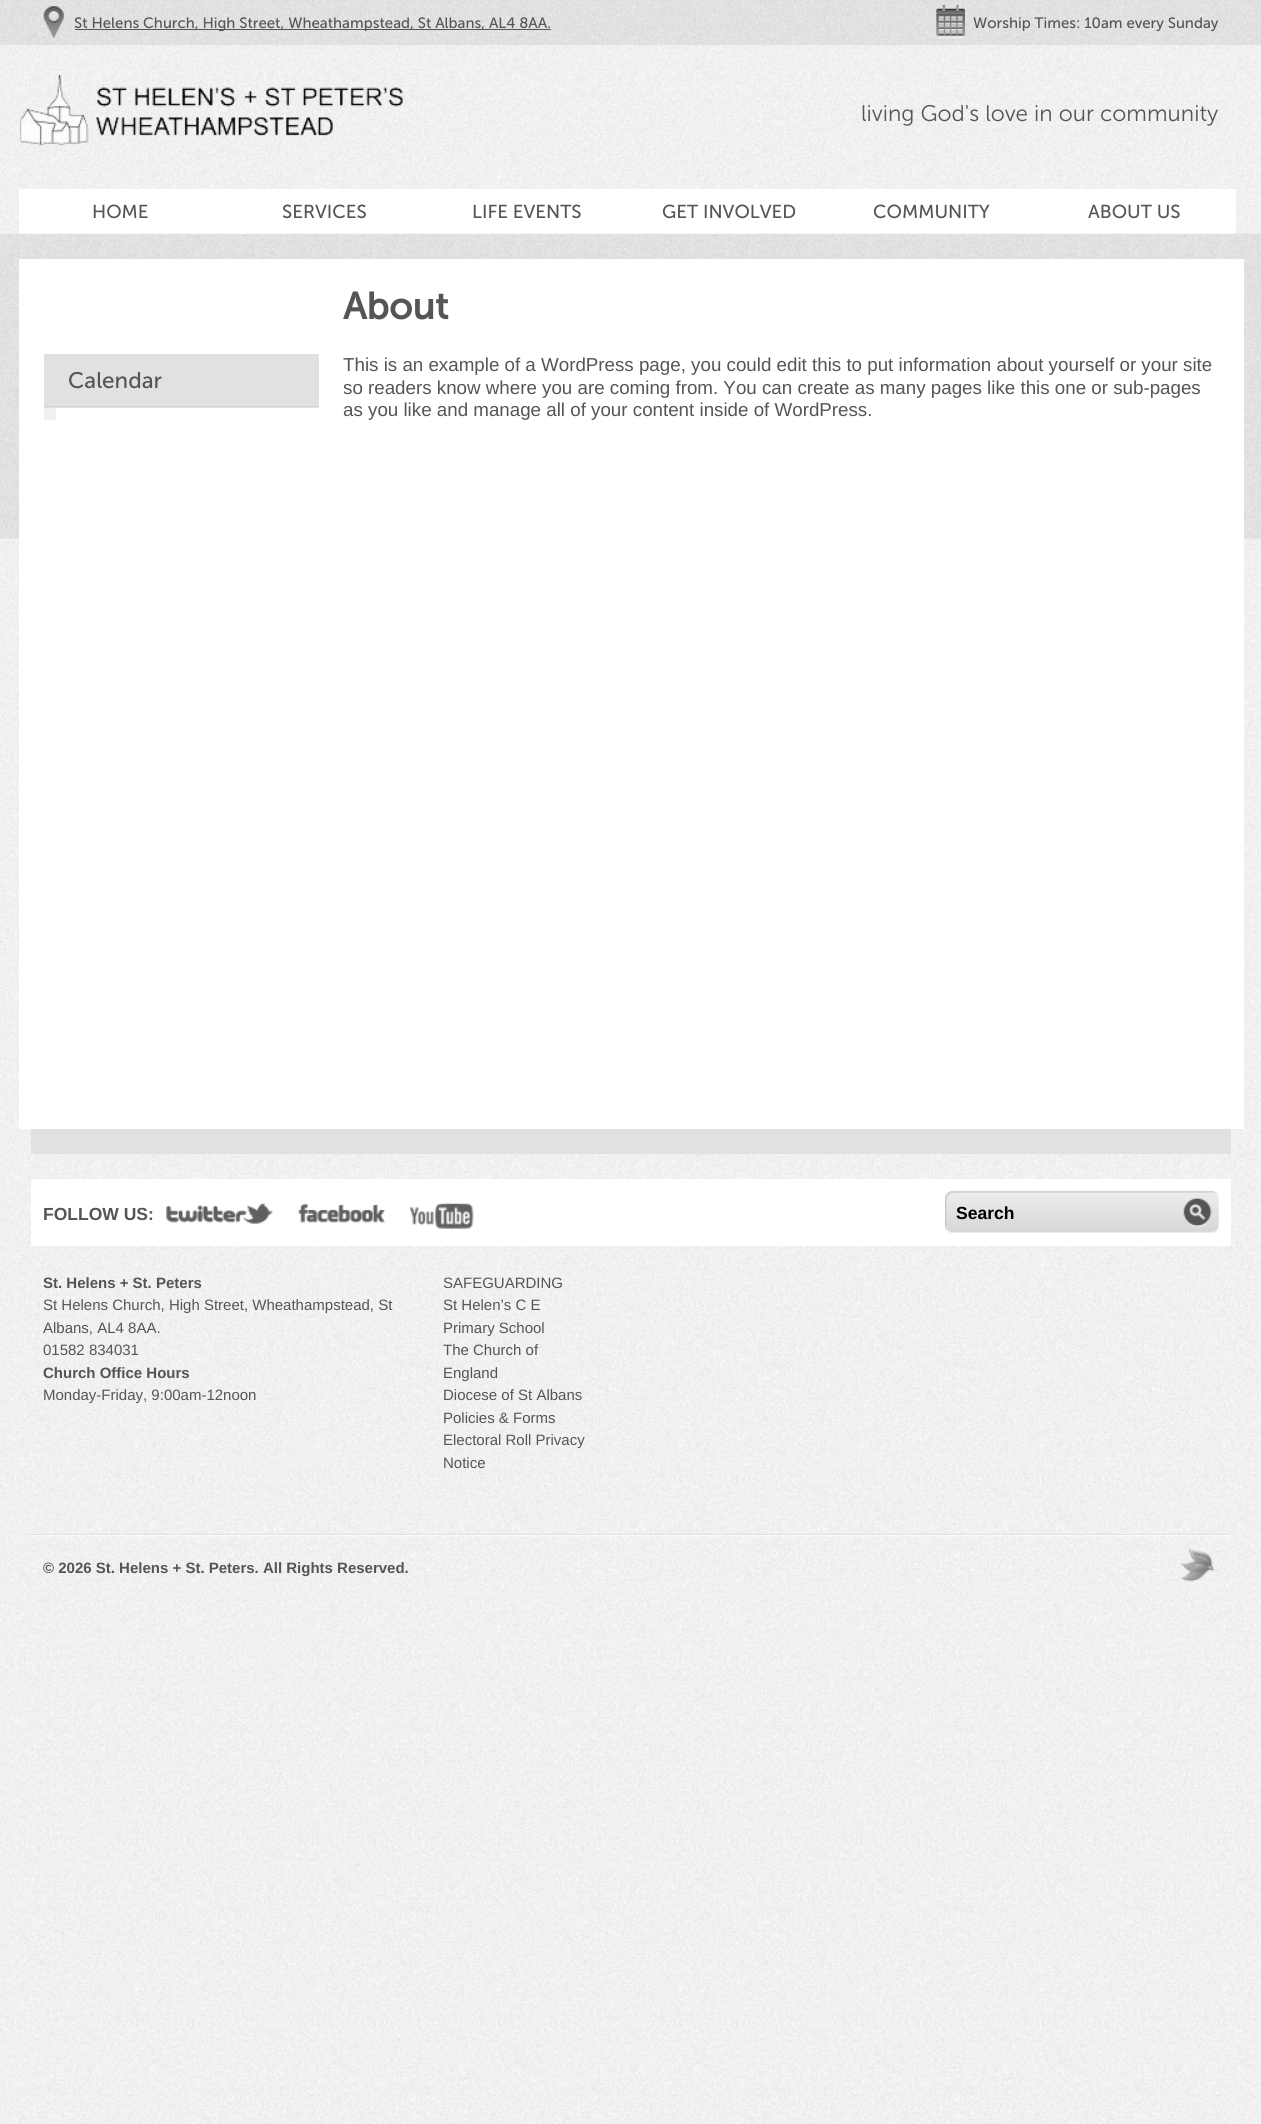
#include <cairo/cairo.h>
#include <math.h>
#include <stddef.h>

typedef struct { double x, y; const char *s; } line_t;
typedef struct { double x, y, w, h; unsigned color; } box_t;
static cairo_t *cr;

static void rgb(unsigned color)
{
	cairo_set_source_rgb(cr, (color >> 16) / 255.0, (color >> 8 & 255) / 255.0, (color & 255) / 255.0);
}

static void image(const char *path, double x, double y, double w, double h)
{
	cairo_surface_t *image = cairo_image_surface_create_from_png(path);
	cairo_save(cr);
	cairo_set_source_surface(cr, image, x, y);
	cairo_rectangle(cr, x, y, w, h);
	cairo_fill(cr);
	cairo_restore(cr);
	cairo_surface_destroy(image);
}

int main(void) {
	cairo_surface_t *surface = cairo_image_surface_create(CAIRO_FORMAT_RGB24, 1261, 2124);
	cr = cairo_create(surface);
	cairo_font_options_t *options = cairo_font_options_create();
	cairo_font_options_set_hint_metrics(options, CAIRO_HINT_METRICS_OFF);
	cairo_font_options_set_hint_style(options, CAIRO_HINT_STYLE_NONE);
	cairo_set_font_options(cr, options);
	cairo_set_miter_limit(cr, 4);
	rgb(0xffffff);
	cairo_paint(cr);
	image("img/1.png", 0, 45, 1261, 2079);
	image("img/2.png", 0, 0, 1261, 45);
	image("img/3.png", 43, 6, 21, 34);
	rgb(0x555555);
	cairo_rectangle(cr, 75, 29, 476, 1);
	cairo_fill(cr);
	image("img/4.png", 936, 5, 29, 33);
	image("img/5.png", 20, 75, 384, 71);
	rgb(0xffffff);
	cairo_rectangle(cr, 19, 189, 1217, 45);
	cairo_fill(cr);
	image("img/6.png", 0, 233, 1261, 306);
	{
		static const box_t items[] = {
			{0, 1661, 1261, 1, 0xf3f3f3},
			{19, 259, 1225, 870, 0xffffff},
			{44, 354, 275, 54, 0xe1e1e1},
			{44, 406, 275, 1, 0xd2d2d2},
			{44, 408, 12, 12, 0xf1f1f1},
			{31, 1129, 1200, 25, 0xe1e1e1},
			{31, 1179, 1200, 67, 0xffffff},
		};
		for (size_t i = 0; i < sizeof items / sizeof *items; i++) {
			rgb(items[i].color);
			cairo_rectangle(cr, items[i].x, items[i].y, items[i].w, items[i].h);
			cairo_fill(cr);
		}
	}
	image("img/7.png", 166, 1203, 107, 21);
	image("img/8.png", 298, 1203, 87, 20);
	image("img/9.png", 410, 1203, 64, 26);
	image("img/10.png", 945, 1191, 230, 42);
	image("img/11.png", 1175, 1191, 44, 42);
	image("img/12.png", 31, 1533, 1200, 4);
	rgb(0xf0f0f0);
	cairo_rectangle(cr, 31, 1596, 1200, 3);
	cairo_fill(cr);
	image("img/13.png", 1181, 1547, 33, 35);
	cairo_select_font_face(cr, "Museo Sans", CAIRO_FONT_SLANT_NORMAL, CAIRO_FONT_WEIGHT_NORMAL);
	cairo_set_font_size(cr, 15);
	rgb(0x555555);
	cairo_move_to(cr, 74, 28);
	cairo_show_text(cr, "St Helens Church, High Street, Wheathampstead, St Albans, AL4 8AA.");
	cairo_move_to(cr, 973, 28);
	cairo_show_text(cr, "Worship Times: 10am every Sunday");
	cairo_select_font_face(cr, "Museo Sans Light", CAIRO_FONT_SLANT_NORMAL, CAIRO_FONT_WEIGHT_NORMAL);
	cairo_set_font_size(cr, 22.5);
	cairo_move_to(cr, 861, 121);
	cairo_show_text(cr, "living God's love in our community");
	cairo_select_font_face(cr, "Museo Sans", CAIRO_FONT_SLANT_NORMAL, CAIRO_FONT_WEIGHT_NORMAL);
	cairo_set_font_size(cr, 18.75);
	{
		static const line_t items[] = {
			{92, 218, "HOME"},
			{282, 218, "SERVICES"},
			{472, 218, "LIFE EVENTS"},
			{662, 218, "GET INVOLVED"},
			{873, 218, "COMMUNITY"},
			{1088, 218, "ABOUT US"},
		};
		for (size_t i = 0; i < sizeof items / sizeof *items; i++) {
			cairo_move_to(cr, items[i].x, items[i].y);
			cairo_show_text(cr, items[i].s);
		}
	}
	cairo_select_font_face(cr, "Museo Sans", CAIRO_FONT_SLANT_NORMAL, CAIRO_FONT_WEIGHT_BOLD);
	cairo_set_font_size(cr, 37.5);
	cairo_move_to(cr, 343, 319);
	cairo_show_text(cr, "About");
	cairo_select_font_face(cr, "Museo Sans", CAIRO_FONT_SLANT_NORMAL, CAIRO_FONT_WEIGHT_NORMAL);
	cairo_set_font_size(cr, 22.5);
	cairo_move_to(cr, 68, 388);
	cairo_show_text(cr, "Calendar");
	cairo_select_font_face(cr, "Liberation Sans", CAIRO_FONT_SLANT_NORMAL, CAIRO_FONT_WEIGHT_NORMAL);
	cairo_set_font_size(cr, 18.75);
	{
		static const line_t items[] = {
			{343, 371, "This is an example of a WordPress page, you could edit this to put information about yourself or your site"},
			{343, 394, "so readers know where you are coming from. You can create as many pages like this one or sub-pages"},
			{343, 416, "as you like and manage all of your content inside of WordPress."},
		};
		for (size_t i = 0; i < sizeof items / sizeof *items; i++) {
			cairo_move_to(cr, items[i].x, items[i].y);
			cairo_show_text(cr, items[i].s);
		}
	}
	cairo_select_font_face(cr, "Liberation Sans", CAIRO_FONT_SLANT_NORMAL, CAIRO_FONT_WEIGHT_BOLD);
	cairo_set_font_size(cr, 17.5);
	cairo_move_to(cr, 43, 1220);
	cairo_show_text(cr, "FOLLOW US:");
	rgb(0x000000);
	cairo_move_to(cr, 956, 1219);
	cairo_show_text(cr, "Search");
	cairo_set_font_size(cr, 15);
	rgb(0x555555);
	cairo_move_to(cr, 43, 1288);
	cairo_show_text(cr, "St. Helens + St. Peters");
	cairo_select_font_face(cr, "Liberation Sans", CAIRO_FONT_SLANT_NORMAL, CAIRO_FONT_WEIGHT_NORMAL);
	{
		static const line_t items[] = {
			{43, 1310, "St Helens Church, High Street, Wheathampstead, St"},
			{43, 1333, "Albans, AL4 8AA."},
			{43, 1355, "01582 834031"},
		};
		for (size_t i = 0; i < sizeof items / sizeof *items; i++) {
			cairo_move_to(cr, items[i].x, items[i].y);
			cairo_show_text(cr, items[i].s);
		}
	}
	cairo_select_font_face(cr, "Liberation Sans", CAIRO_FONT_SLANT_NORMAL, CAIRO_FONT_WEIGHT_BOLD);
	cairo_move_to(cr, 43, 1378);
	cairo_show_text(cr, "Church Office Hours");
	cairo_select_font_face(cr, "Liberation Sans", CAIRO_FONT_SLANT_NORMAL, CAIRO_FONT_WEIGHT_NORMAL);
	{
		static const line_t items[] = {
			{43, 1400, "Monday-Friday, 9:00am-12noon"},
			{443, 1288, "SAFEGUARDING"},
			{443, 1310, "St Helen’s C E"},
			{443, 1333, "Primary School"},
			{443, 1355, "The Church of"},
			{443, 1378, "England"},
			{443, 1400, "Diocese of St Albans"},
			{443, 1423, "Policies & Forms"},
			{443, 1445, "Electoral Roll Privacy"},
			{443, 1468, "Notice"},
		};
		for (size_t i = 0; i < sizeof items / sizeof *items; i++) {
			cairo_move_to(cr, items[i].x, items[i].y);
			cairo_show_text(cr, items[i].s);
		}
	}
	cairo_select_font_face(cr, "Liberation Sans", CAIRO_FONT_SLANT_NORMAL, CAIRO_FONT_WEIGHT_BOLD);
	cairo_move_to(cr, 43, 1573);
	cairo_show_text(cr, "© 2026 St. Helens + St. Peters. All Rights Reserved.");
	cairo_surface_write_to_png(surface, "page.png");
	cairo_font_options_destroy(options);
	cairo_destroy(cr);
	cairo_surface_destroy(surface);
	return 0;
}
